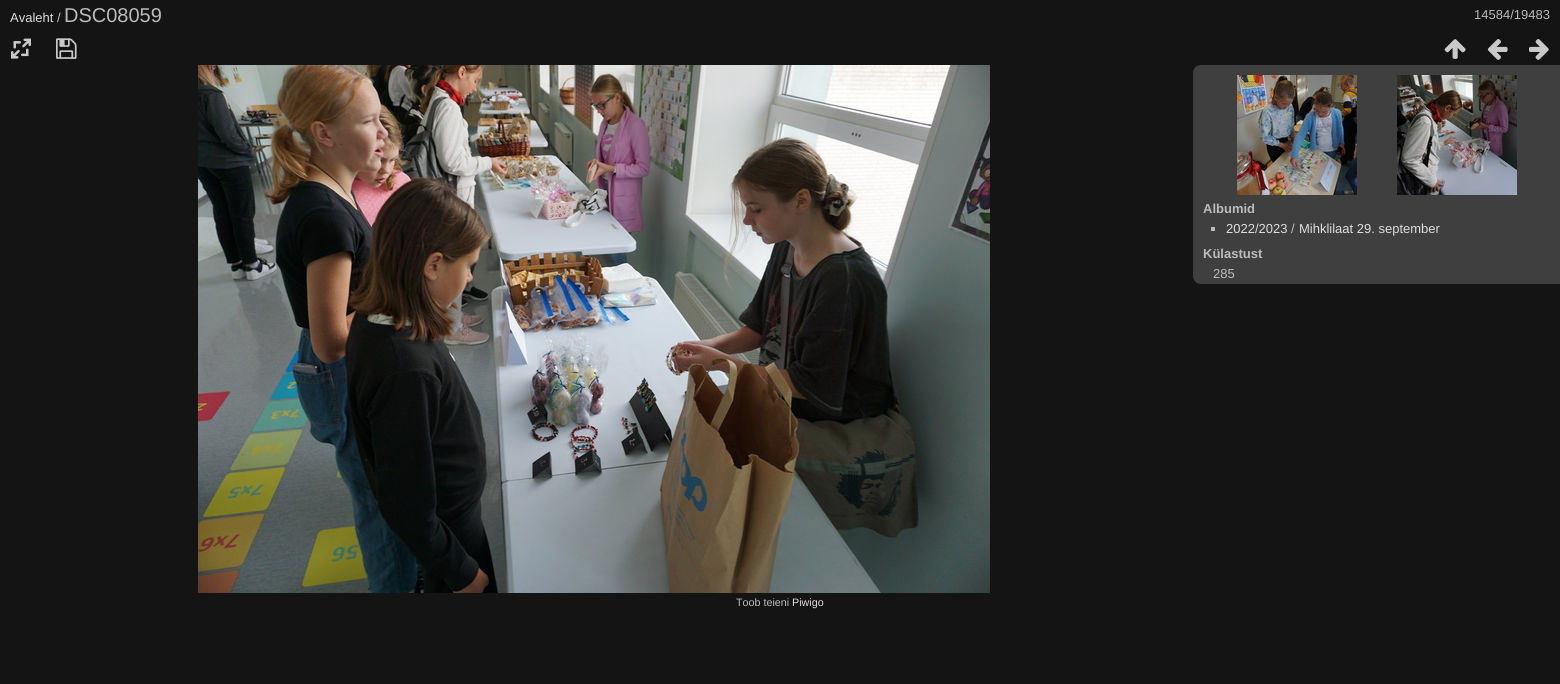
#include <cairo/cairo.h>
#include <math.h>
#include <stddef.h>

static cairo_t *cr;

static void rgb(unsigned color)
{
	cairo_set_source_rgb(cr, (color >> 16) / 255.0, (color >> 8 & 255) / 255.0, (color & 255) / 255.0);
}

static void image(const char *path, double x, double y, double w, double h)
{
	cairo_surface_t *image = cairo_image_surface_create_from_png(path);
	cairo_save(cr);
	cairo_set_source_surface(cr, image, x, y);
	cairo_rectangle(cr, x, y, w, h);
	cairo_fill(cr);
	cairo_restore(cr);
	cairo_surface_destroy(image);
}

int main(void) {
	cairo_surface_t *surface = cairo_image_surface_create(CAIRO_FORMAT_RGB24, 1560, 684);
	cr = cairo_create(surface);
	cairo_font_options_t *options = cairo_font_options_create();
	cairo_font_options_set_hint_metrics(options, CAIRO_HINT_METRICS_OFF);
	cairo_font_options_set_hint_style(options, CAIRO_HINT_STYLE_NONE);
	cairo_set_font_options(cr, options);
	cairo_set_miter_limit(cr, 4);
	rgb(0x141414);
	cairo_paint(cr);
	image("img/1.png", 11, 38, 20, 21);
	image("img/2.png", 56, 38, 21, 21);
	image("img/3.png", 1444, 39, 22, 20);
	image("img/4.png", 1487, 39, 21, 21);
	image("img/5.png", 1529, 39, 20, 21);
	image("img/6.png", 198, 65, 792, 528);
	rgb(0x3f3f3f);
	cairo_new_path(cr);
	cairo_move_to(cr, 1201, 65);
	cairo_line_to(cr, 1560, 65);
	cairo_line_to(cr, 1560, 284);
	cairo_line_to(cr, 1201, 284);
	cairo_curve_to(cr, 1196.5, 284, 1193, 280.5, 1193, 276);
	cairo_line_to(cr, 1193, 73);
	cairo_curve_to(cr, 1193, 68.5, 1196.5, 65, 1201, 65);
	cairo_close_path(cr);
	cairo_fill(cr);
	image("img/7.png", 1237, 75, 120, 120);
	image("img/8.png", 1397, 75, 120, 120);
	rgb(0xbbbbbb);
	cairo_rectangle(cr, 1211, 227, 4, 4);
	cairo_fill(cr);
	cairo_select_font_face(cr, "Liberation Sans", CAIRO_FONT_SLANT_NORMAL, CAIRO_FONT_WEIGHT_NORMAL);
	cairo_set_font_size(cr, 13);
	rgb(0xdddddd);
	cairo_move_to(cr, 10, 22);
	cairo_show_text(cr, "Avaleht");
	rgb(0xbbbbbb);
	cairo_move_to(cr, 57, 22);
	cairo_show_text(cr, "/");
	cairo_set_font_size(cr, 20);
	cairo_move_to(cr, 64, 22);
	cairo_show_text(cr, "DSC08059");
	cairo_set_font_size(cr, 13);
	cairo_move_to(cr, 1474, 19);
	cairo_show_text(cr, "14584/19483");
	cairo_select_font_face(cr, "Liberation Sans", CAIRO_FONT_SLANT_NORMAL, CAIRO_FONT_WEIGHT_BOLD);
	cairo_move_to(cr, 1203, 213);
	cairo_show_text(cr, "Albumid");
	cairo_select_font_face(cr, "Liberation Sans", CAIRO_FONT_SLANT_NORMAL, CAIRO_FONT_WEIGHT_NORMAL);
	rgb(0xdddddd);
	cairo_move_to(cr, 1226, 233);
	cairo_show_text(cr, "2022/2023");
	rgb(0xbbbbbb);
	cairo_move_to(cr, 1291, 233);
	cairo_show_text(cr, "/");
	rgb(0xdddddd);
	cairo_move_to(cr, 1299, 233);
	cairo_show_text(cr, "Mihklilaat 29. september");
	cairo_select_font_face(cr, "Liberation Sans", CAIRO_FONT_SLANT_NORMAL, CAIRO_FONT_WEIGHT_BOLD);
	rgb(0xbbbbbb);
	cairo_move_to(cr, 1203, 258);
	cairo_show_text(cr, "Külastust");
	cairo_select_font_face(cr, "Liberation Sans", CAIRO_FONT_SLANT_NORMAL, CAIRO_FONT_WEIGHT_NORMAL);
	cairo_move_to(cr, 1213, 278);
	cairo_show_text(cr, "285");
	cairo_set_font_size(cr, 10.75);
	cairo_move_to(cr, 736, 606);
	cairo_show_text(cr, "Toob teieni");
	rgb(0xdddddd);
	cairo_move_to(cr, 792, 606);
	cairo_show_text(cr, "Piwigo");
	cairo_surface_write_to_png(surface, "page.png");
	cairo_font_options_destroy(options);
	cairo_destroy(cr);
	cairo_surface_destroy(surface);
	return 0;
}
